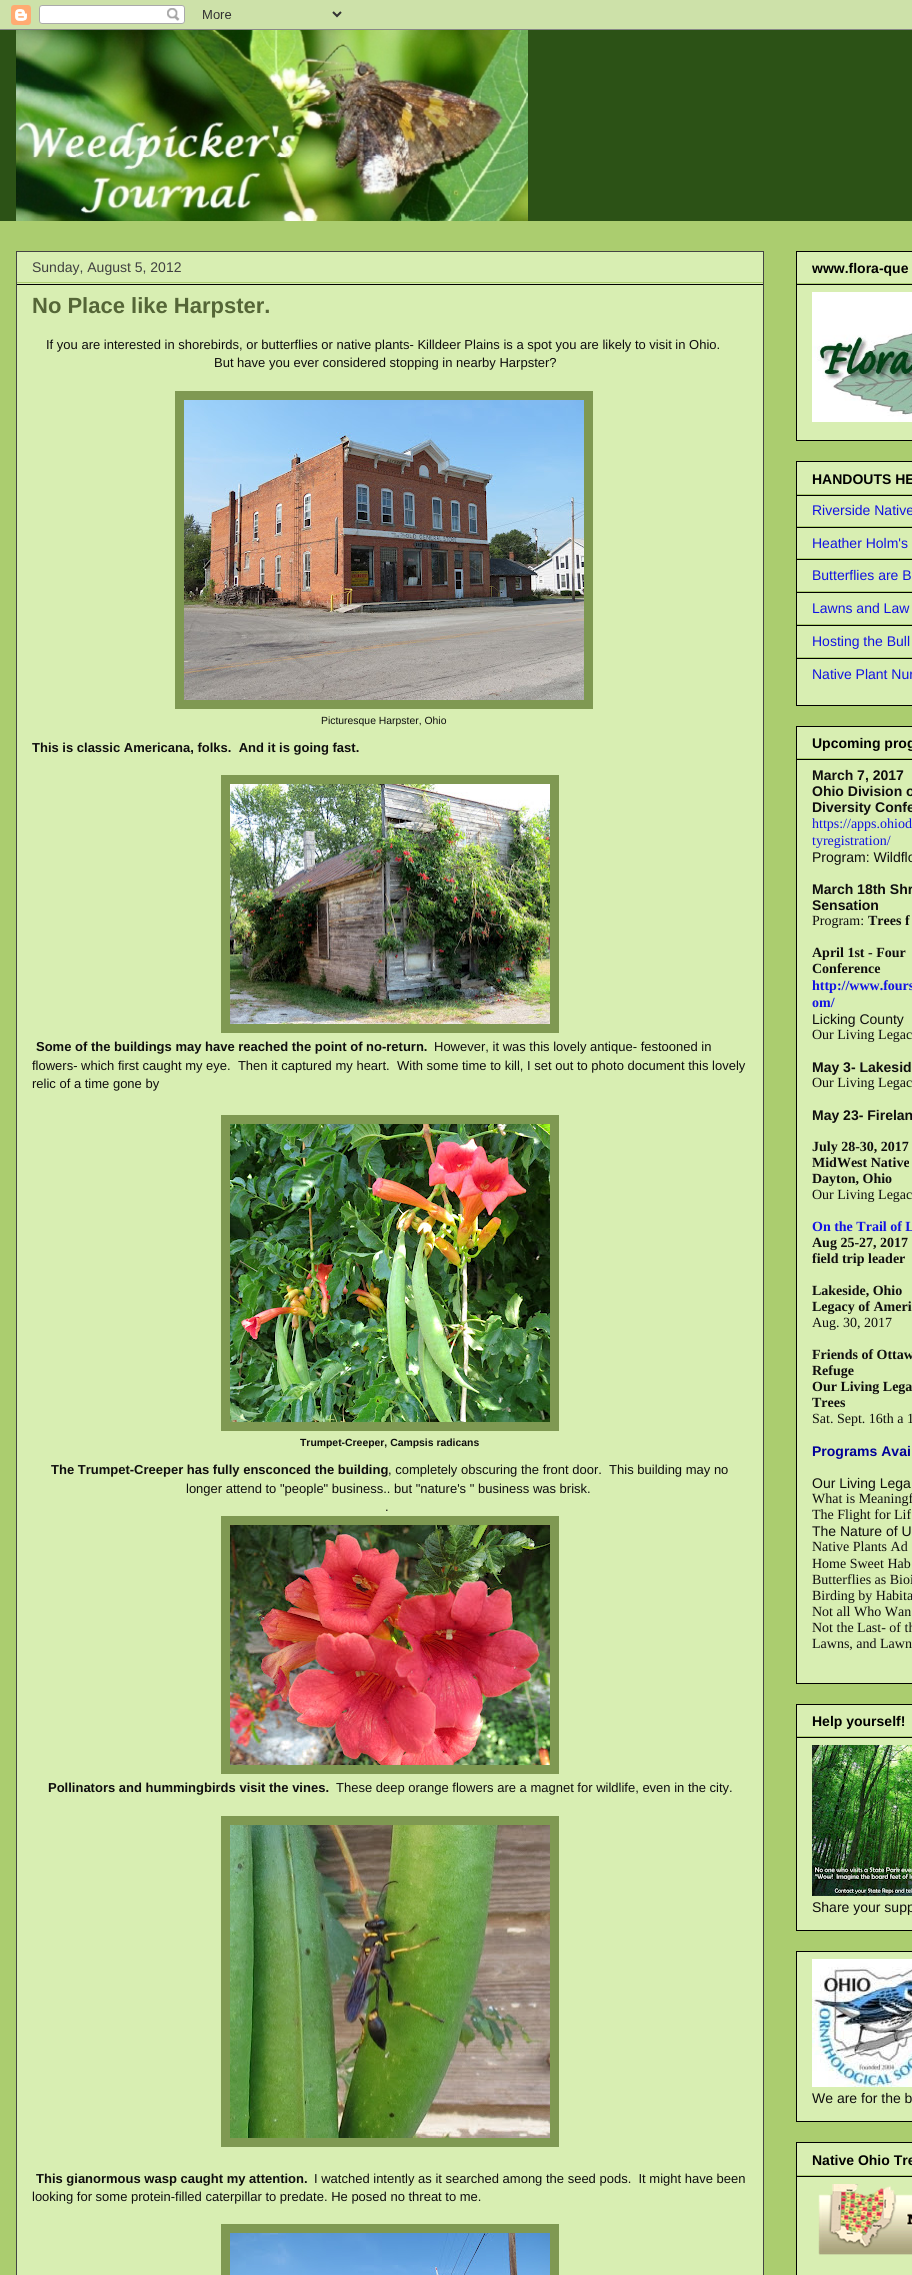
#include <cairo/cairo.h>
#include <math.h>
#include <stddef.h>

typedef struct { double x, y; const char *s; } line_t;
typedef struct { double x, y, w, h; unsigned color; } box_t;
static cairo_t *cr;

static void rgb(unsigned color)
{
	cairo_set_source_rgb(cr, (color >> 16) / 255.0, (color >> 8 & 255) / 255.0, (color & 255) / 255.0);
}

static void image(const char *path, double x, double y, double w, double h)
{
	cairo_surface_t *image = cairo_image_surface_create_from_png(path);
	cairo_save(cr);
	cairo_set_source_surface(cr, image, x, y);
	cairo_rectangle(cr, x, y, w, h);
	cairo_fill(cr);
	cairo_restore(cr);
	cairo_surface_destroy(image);
}

int main(void) {
	cairo_surface_t *surface = cairo_image_surface_create(CAIRO_FORMAT_RGB24, 912, 2275);
	cr = cairo_create(surface);
	cairo_font_options_t *options = cairo_font_options_create();
	cairo_font_options_set_hint_metrics(options, CAIRO_HINT_METRICS_OFF);
	cairo_font_options_set_hint_style(options, CAIRO_HINT_STYLE_NONE);
	cairo_set_font_options(cr, options);
	cairo_set_miter_limit(cr, 4);
	rgb(0xabcd6f);
	cairo_paint(cr);
	image("img/1.png", 0, 0, 912, 30);
	rgb(0x2c5216);
	cairo_rectangle(cr, 0, 30, 912, 191);
	cairo_fill(cr);
	image("img/2.png", 16, 30, 512, 191);
	rgb(0xd8eeb2);
	cairo_rectangle(cr, 16.5, 251.5, 747, 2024);
	cairo_fill_preserve(cr);
	rgb(0x444444);
	cairo_set_line_width(cr, 1);
	cairo_stroke(cr);
	{
		static const box_t items[] = {
			{17, 282, 746, 1, 0xabcd6f},
			{17, 284, 746, 1, 0x000000},
			{175, 391, 418, 318, 0x7f9952},
		};
		for (size_t i = 0; i < sizeof items / sizeof *items; i++) {
			rgb(items[i].color);
			cairo_rectangle(cr, items[i].x, items[i].y, items[i].w, items[i].h);
			cairo_fill(cr);
		}
	}
	image("img/3.png", 184, 400, 400, 300);
	cairo_rectangle(cr, 221, 775, 338, 258);
	cairo_fill(cr);
	image("img/4.png", 230, 784, 320, 240);
	cairo_rectangle(cr, 221, 1115, 338, 316);
	cairo_fill(cr);
	image("img/5.png", 230, 1124, 320, 298);
	cairo_rectangle(cr, 221, 1516, 338, 258);
	cairo_fill(cr);
	image("img/6.png", 230, 1525, 320, 240);
	cairo_rectangle(cr, 221, 1816, 338, 331);
	cairo_fill(cr);
	image("img/7.png", 230, 1825, 320, 313);
	cairo_rectangle(cr, 221, 2224, 338, 51);
	cairo_fill(cr);
	image("img/8.png", 230, 2233, 320, 42);
	rgb(0xd8eeb2);
	cairo_rectangle(cr, 796.5, 251.5, 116, 189);
	cairo_fill_preserve(cr);
	rgb(0x000000);
	cairo_stroke(cr);
	rgb(0xabcd6f);
	cairo_rectangle(cr, 797, 283, 115, 1);
	cairo_fill(cr);
	rgb(0x000000);
	cairo_rectangle(cr, 797, 284, 115, 1);
	cairo_fill(cr);
	image("img/9.png", 812, 292, 100, 130);
	rgb(0xd8eeb2);
	cairo_rectangle(cr, 796.5, 461.5, 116, 244);
	cairo_fill_preserve(cr);
	rgb(0x000000);
	cairo_stroke(cr);
	{
		static const box_t items[] = {
			{797, 494, 115, 1, 0xabcd6f},
			{797, 495, 115, 1, 0x000000},
			{797, 526, 115, 1, 0xabcd6f},
			{797, 527, 115, 1, 0x000000},
			{797, 558, 115, 1, 0xabcd6f},
			{797, 559, 115, 1, 0x000000},
			{797, 591, 115, 1, 0xabcd6f},
			{797, 592, 115, 1, 0x000000},
			{797, 624, 115, 1, 0xabcd6f},
			{797, 625, 115, 1, 0x000000},
			{797, 657, 115, 1, 0xabcd6f},
			{797, 658, 115, 1, 0x000000},
		};
		for (size_t i = 0; i < sizeof items / sizeof *items; i++) {
			rgb(items[i].color);
			cairo_rectangle(cr, items[i].x, items[i].y, items[i].w, items[i].h);
			cairo_fill(cr);
		}
	}
	rgb(0xd8eeb2);
	cairo_rectangle(cr, 796.5, 726.5, 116, 957);
	cairo_fill_preserve(cr);
	rgb(0x000000);
	cairo_stroke(cr);
	rgb(0xabcd6f);
	cairo_rectangle(cr, 797, 758, 115, 1);
	cairo_fill(cr);
	rgb(0x000000);
	cairo_rectangle(cr, 797, 759, 115, 1);
	cairo_fill(cr);
	rgb(0xd8eeb2);
	cairo_rectangle(cr, 796.5, 1704.5, 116, 226);
	cairo_fill_preserve(cr);
	rgb(0x000000);
	cairo_stroke(cr);
	rgb(0xabcd6f);
	cairo_rectangle(cr, 797, 1736, 115, 1);
	cairo_fill(cr);
	rgb(0x000000);
	cairo_rectangle(cr, 797, 1737, 115, 1);
	cairo_fill(cr);
	image("img/10.png", 812, 1745, 100, 151);
	rgb(0xd8eeb2);
	cairo_rectangle(cr, 796.5, 1951.5, 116, 170);
	cairo_fill_preserve(cr);
	rgb(0x000000);
	cairo_stroke(cr);
	image("img/11.png", 812, 1959, 100, 128);
	rgb(0xd8eeb2);
	cairo_rectangle(cr, 796.5, 2142.5, 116, 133);
	cairo_fill_preserve(cr);
	rgb(0x000000);
	cairo_stroke(cr);
	rgb(0xabcd6f);
	cairo_rectangle(cr, 797, 2175, 115, 1);
	cairo_fill(cr);
	rgb(0x000000);
	cairo_rectangle(cr, 797, 2176, 115, 1);
	cairo_fill(cr);
	image("img/12.png", 818, 2184, 94, 71);
	cairo_select_font_face(cr, "Liberation Sans", CAIRO_FONT_SLANT_NORMAL, CAIRO_FONT_WEIGHT_NORMAL);
	cairo_set_font_size(cr, 14);
	rgb(0x404040);
	cairo_move_to(cr, 32, 272);
	cairo_show_text(cr, "Sunday, August 5, 2012");
	cairo_select_font_face(cr, "Liberation Sans", CAIRO_FONT_SLANT_NORMAL, CAIRO_FONT_WEIGHT_BOLD);
	cairo_set_font_size(cr, 22);
	rgb(0x556637);
	cairo_move_to(cr, 32, 313);
	cairo_show_text(cr, "No Place like Harpster.");
	cairo_select_font_face(cr, "Liberation Sans", CAIRO_FONT_SLANT_NORMAL, CAIRO_FONT_WEIGHT_NORMAL);
	cairo_set_font_size(cr, 13);
	rgb(0x0e0d0d);
	cairo_move_to(cr, 46, 349);
	cairo_show_text(cr, "If you are interested in shorebirds, or butterflies or native plants- Killdeer Plains is a spot you are likely to visit in Ohio.");
	cairo_move_to(cr, 214, 367);
	cairo_show_text(cr, "But have you ever considered stopping in nearby Harpster?");
	cairo_set_font_size(cr, 10.4);
	cairo_move_to(cr, 321, 724);
	cairo_show_text(cr, "Picturesque Harpster, Ohio");
	cairo_select_font_face(cr, "Liberation Sans", CAIRO_FONT_SLANT_NORMAL, CAIRO_FONT_WEIGHT_BOLD);
	cairo_set_font_size(cr, 13);
	cairo_move_to(cr, 32, 752);
	cairo_show_text(cr, "This is classic Americana, folks.  And it is going fast.");
	cairo_move_to(cr, 36, 1051);
	cairo_show_text(cr, "Some of the buildings may have reached the point of no-return.");
	cairo_select_font_face(cr, "Liberation Sans", CAIRO_FONT_SLANT_NORMAL, CAIRO_FONT_WEIGHT_NORMAL);
	{
		static const line_t items[] = {
			{434, 1051, "However, it was this lovely antique- festooned in"},
			{32, 1070, "flowers- which first caught my eye.  Then it captured my heart."},
			{397, 1070, "With some time to kill, I set out to photo document this lovely"},
			{32, 1088, "relic of a time gone by"},
		};
		for (size_t i = 0; i < sizeof items / sizeof *items; i++) {
			cairo_move_to(cr, items[i].x, items[i].y);
			cairo_show_text(cr, items[i].s);
		}
	}
	cairo_select_font_face(cr, "Liberation Sans", CAIRO_FONT_SLANT_NORMAL, CAIRO_FONT_WEIGHT_BOLD);
	cairo_set_font_size(cr, 10.4);
	cairo_move_to(cr, 300, 1446);
	cairo_show_text(cr, "Trumpet-Creeper, Campsis radicans");
	cairo_set_font_size(cr, 13);
	cairo_move_to(cr, 51, 1474);
	cairo_show_text(cr, "The Trumpet-Creeper has fully ensconced the building");
	cairo_select_font_face(cr, "Liberation Sans", CAIRO_FONT_SLANT_NORMAL, CAIRO_FONT_WEIGHT_NORMAL);
	{
		static const line_t items[] = {
			{388, 1474, ", completely obscuring the front door.  This building may no"},
			{186, 1493, "longer attend to \"people\" business.. but \"nature's \" business was brisk."},
			{385, 1511, "."},
		};
		for (size_t i = 0; i < sizeof items / sizeof *items; i++) {
			cairo_move_to(cr, items[i].x, items[i].y);
			cairo_show_text(cr, items[i].s);
		}
	}
	cairo_select_font_face(cr, "Liberation Sans", CAIRO_FONT_SLANT_NORMAL, CAIRO_FONT_WEIGHT_BOLD);
	cairo_move_to(cr, 48, 1792);
	cairo_show_text(cr, "Pollinators and hummingbirds visit the vines.");
	cairo_select_font_face(cr, "Liberation Sans", CAIRO_FONT_SLANT_NORMAL, CAIRO_FONT_WEIGHT_NORMAL);
	cairo_move_to(cr, 336, 1792);
	cairo_show_text(cr, "These deep orange flowers are a magnet for wildlife, even in the city.");
	cairo_select_font_face(cr, "Liberation Sans", CAIRO_FONT_SLANT_NORMAL, CAIRO_FONT_WEIGHT_BOLD);
	cairo_move_to(cr, 36, 2183);
	cairo_show_text(cr, "This gianormous wasp caught my attention.");
	cairo_select_font_face(cr, "Liberation Sans", CAIRO_FONT_SLANT_NORMAL, CAIRO_FONT_WEIGHT_NORMAL);
	cairo_move_to(cr, 314, 2183);
	cairo_show_text(cr, "I watched intently as it searched among the seed pods.  It might have been");
	cairo_move_to(cr, 32, 2201);
	cairo_show_text(cr, "looking for some protein-filled caterpillar to predate. He posed no threat to me.");
	cairo_select_font_face(cr, "Liberation Sans", CAIRO_FONT_SLANT_NORMAL, CAIRO_FONT_WEIGHT_BOLD);
	cairo_set_font_size(cr, 14);
	rgb(0x000000);
	cairo_move_to(cr, 812, 273);
	cairo_show_text(cr, "www.flora-que");
	cairo_move_to(cr, 812, 484);
	cairo_show_text(cr, "HANDOUTS HE");
	cairo_select_font_face(cr, "Liberation Sans", CAIRO_FONT_SLANT_NORMAL, CAIRO_FONT_WEIGHT_NORMAL);
	rgb(0x1212e3);
	{
		static const line_t items[] = {
			{812, 515, "Riverside Native"},
			{812, 548, "Heather Holm's"},
			{812, 580, "Butterflies are B"},
			{812, 613, "Lawns and Law"},
			{812, 646, "Hosting the Bull"},
			{812, 679, "Native Plant Nur"},
		};
		for (size_t i = 0; i < sizeof items / sizeof *items; i++) {
			cairo_move_to(cr, items[i].x, items[i].y);
			cairo_show_text(cr, items[i].s);
		}
	}
	cairo_select_font_face(cr, "Liberation Sans", CAIRO_FONT_SLANT_NORMAL, CAIRO_FONT_WEIGHT_BOLD);
	rgb(0x000000);
	cairo_move_to(cr, 812, 748);
	cairo_show_text(cr, "Upcoming prog");
	rgb(0x0e0d0d);
	{
		static const line_t items[] = {
			{812, 780, "March 7, 2017"},
			{812, 796, "Ohio Division o"},
			{812, 812, "Diversity Confe"},
		};
		for (size_t i = 0; i < sizeof items / sizeof *items; i++) {
			cairo_move_to(cr, items[i].x, items[i].y);
			cairo_show_text(cr, items[i].s);
		}
	}
	cairo_select_font_face(cr, "Liberation Serif", CAIRO_FONT_SLANT_NORMAL, CAIRO_FONT_WEIGHT_NORMAL);
	rgb(0x1212e3);
	cairo_move_to(cr, 812, 828);
	cairo_show_text(cr, "https://apps.ohiod");
	cairo_move_to(cr, 812, 845);
	cairo_show_text(cr, "tyregistration/");
	cairo_select_font_face(cr, "Liberation Sans", CAIRO_FONT_SLANT_NORMAL, CAIRO_FONT_WEIGHT_NORMAL);
	rgb(0x0e0d0d);
	cairo_move_to(cr, 812, 862);
	cairo_show_text(cr, "Program: Wildflo");
	cairo_select_font_face(cr, "Liberation Sans", CAIRO_FONT_SLANT_NORMAL, CAIRO_FONT_WEIGHT_BOLD);
	cairo_move_to(cr, 812, 894);
	cairo_show_text(cr, "March 18th Shr");
	cairo_move_to(cr, 812, 910);
	cairo_show_text(cr, "Sensation");
	cairo_select_font_face(cr, "Liberation Serif", CAIRO_FONT_SLANT_NORMAL, CAIRO_FONT_WEIGHT_NORMAL);
	cairo_move_to(cr, 812, 925);
	cairo_show_text(cr, "Program:");
	cairo_select_font_face(cr, "Liberation Serif", CAIRO_FONT_SLANT_NORMAL, CAIRO_FONT_WEIGHT_BOLD);
	{
		static const line_t items[] = {
			{868, 925, "Trees f"},
			{812, 957, "April 1st - Four"},
			{812, 973, "Conference"},
		};
		for (size_t i = 0; i < sizeof items / sizeof *items; i++) {
			cairo_move_to(cr, items[i].x, items[i].y);
			cairo_show_text(cr, items[i].s);
		}
	}
	rgb(0x1212e3);
	cairo_move_to(cr, 812, 990);
	cairo_show_text(cr, "http://www.fours");
	cairo_move_to(cr, 812, 1007);
	cairo_show_text(cr, "om/");
	cairo_select_font_face(cr, "Liberation Sans", CAIRO_FONT_SLANT_NORMAL, CAIRO_FONT_WEIGHT_NORMAL);
	rgb(0x0e0d0d);
	cairo_move_to(cr, 812, 1024);
	cairo_show_text(cr, "Licking County");
	cairo_select_font_face(cr, "Liberation Serif", CAIRO_FONT_SLANT_NORMAL, CAIRO_FONT_WEIGHT_NORMAL);
	cairo_move_to(cr, 812, 1039);
	cairo_show_text(cr, "Our Living Legac");
	cairo_select_font_face(cr, "Liberation Sans", CAIRO_FONT_SLANT_NORMAL, CAIRO_FONT_WEIGHT_BOLD);
	cairo_move_to(cr, 812, 1072);
	cairo_show_text(cr, "May 3- Lakesid");
	cairo_select_font_face(cr, "Liberation Serif", CAIRO_FONT_SLANT_NORMAL, CAIRO_FONT_WEIGHT_NORMAL);
	cairo_move_to(cr, 812, 1087);
	cairo_show_text(cr, "Our Living Legac");
	cairo_select_font_face(cr, "Liberation Sans", CAIRO_FONT_SLANT_NORMAL, CAIRO_FONT_WEIGHT_BOLD);
	cairo_move_to(cr, 812, 1120);
	cairo_show_text(cr, "May 23- Firelan");
	cairo_select_font_face(cr, "Liberation Serif", CAIRO_FONT_SLANT_NORMAL, CAIRO_FONT_WEIGHT_BOLD);
	{
		static const line_t items[] = {
			{812, 1151, "July 28-30, 2017"},
			{812, 1167, "MidWest Native"},
			{812, 1183, "Dayton, Ohio"},
		};
		for (size_t i = 0; i < sizeof items / sizeof *items; i++) {
			cairo_move_to(cr, items[i].x, items[i].y);
			cairo_show_text(cr, items[i].s);
		}
	}
	cairo_select_font_face(cr, "Liberation Serif", CAIRO_FONT_SLANT_NORMAL, CAIRO_FONT_WEIGHT_NORMAL);
	cairo_move_to(cr, 812, 1199);
	cairo_show_text(cr, "Our Living Legac");
	cairo_select_font_face(cr, "Liberation Serif", CAIRO_FONT_SLANT_NORMAL, CAIRO_FONT_WEIGHT_BOLD);
	rgb(0x1212e3);
	cairo_move_to(cr, 812, 1231);
	cairo_show_text(cr, "On the Trail of L");
	rgb(0x0e0d0d);
	{
		static const line_t items[] = {
			{812, 1247, "Aug 25-27, 2017"},
			{812, 1263, "field trip leader"},
			{812, 1295, "Lakeside, Ohio"},
			{812, 1311, "Legacy of Ameri"},
		};
		for (size_t i = 0; i < sizeof items / sizeof *items; i++) {
			cairo_move_to(cr, items[i].x, items[i].y);
			cairo_show_text(cr, items[i].s);
		}
	}
	cairo_select_font_face(cr, "Liberation Serif", CAIRO_FONT_SLANT_NORMAL, CAIRO_FONT_WEIGHT_NORMAL);
	cairo_move_to(cr, 812, 1327);
	cairo_show_text(cr, "Aug. 30, 2017");
	cairo_select_font_face(cr, "Liberation Serif", CAIRO_FONT_SLANT_NORMAL, CAIRO_FONT_WEIGHT_BOLD);
	{
		static const line_t items[] = {
			{812, 1359, "Friends of Ottaw"},
			{812, 1375, "Refuge"},
			{812, 1391, "Our Living Lega"},
			{812, 1407, "Trees"},
		};
		for (size_t i = 0; i < sizeof items / sizeof *items; i++) {
			cairo_move_to(cr, items[i].x, items[i].y);
			cairo_show_text(cr, items[i].s);
		}
	}
	cairo_select_font_face(cr, "Liberation Serif", CAIRO_FONT_SLANT_NORMAL, CAIRO_FONT_WEIGHT_NORMAL);
	cairo_move_to(cr, 812, 1423);
	cairo_show_text(cr, "Sat. Sept. 16th a 1");
	cairo_select_font_face(cr, "Liberation Sans", CAIRO_FONT_SLANT_NORMAL, CAIRO_FONT_WEIGHT_BOLD);
	rgb(0x000099);
	cairo_move_to(cr, 812, 1456);
	cairo_show_text(cr, "Programs Avai");
	cairo_select_font_face(cr, "Liberation Sans", CAIRO_FONT_SLANT_NORMAL, CAIRO_FONT_WEIGHT_NORMAL);
	rgb(0x0e0d0d);
	cairo_move_to(cr, 812, 1488);
	cairo_show_text(cr, "Our Living Lega");
	cairo_select_font_face(cr, "Liberation Serif", CAIRO_FONT_SLANT_NORMAL, CAIRO_FONT_WEIGHT_NORMAL);
	cairo_move_to(cr, 812, 1503);
	cairo_show_text(cr, "What is Meaningf");
	cairo_move_to(cr, 812, 1519);
	cairo_show_text(cr, "The Flight for Lif");
	cairo_select_font_face(cr, "Liberation Sans", CAIRO_FONT_SLANT_NORMAL, CAIRO_FONT_WEIGHT_NORMAL);
	cairo_move_to(cr, 812, 1536);
	cairo_show_text(cr, "The Nature of U");
	cairo_select_font_face(cr, "Liberation Serif", CAIRO_FONT_SLANT_NORMAL, CAIRO_FONT_WEIGHT_NORMAL);
	{
		static const line_t items[] = {
			{812, 1551, "Native Plants Ad"},
			{812, 1568, "Home Sweet Hab"},
			{812, 1584, "Butterflies as Bioi"},
			{812, 1600, "Birding by Habita"},
			{812, 1616, "Not all Who Wan"},
			{812, 1632, "Not the Last- of th"},
			{812, 1648, "Lawns, and Lawn"},
		};
		for (size_t i = 0; i < sizeof items / sizeof *items; i++) {
			cairo_move_to(cr, items[i].x, items[i].y);
			cairo_show_text(cr, items[i].s);
		}
	}
	cairo_select_font_face(cr, "Liberation Sans", CAIRO_FONT_SLANT_NORMAL, CAIRO_FONT_WEIGHT_BOLD);
	rgb(0x000000);
	cairo_move_to(cr, 812, 1726);
	cairo_show_text(cr, "Help yourself!");
	cairo_select_font_face(cr, "Liberation Sans", CAIRO_FONT_SLANT_NORMAL, CAIRO_FONT_WEIGHT_NORMAL);
	rgb(0x0e0d0d);
	cairo_move_to(cr, 812, 1912);
	cairo_show_text(cr, "Share your supp");
	cairo_move_to(cr, 812, 2103);
	cairo_show_text(cr, "We are for the b");
	cairo_select_font_face(cr, "Liberation Sans", CAIRO_FONT_SLANT_NORMAL, CAIRO_FONT_WEIGHT_BOLD);
	rgb(0x000000);
	cairo_move_to(cr, 812, 2165);
	cairo_show_text(cr, "Native Ohio Tre");
	cairo_surface_write_to_png(surface, "page.png");
	cairo_font_options_destroy(options);
	cairo_destroy(cr);
	cairo_surface_destroy(surface);
	return 0;
}
